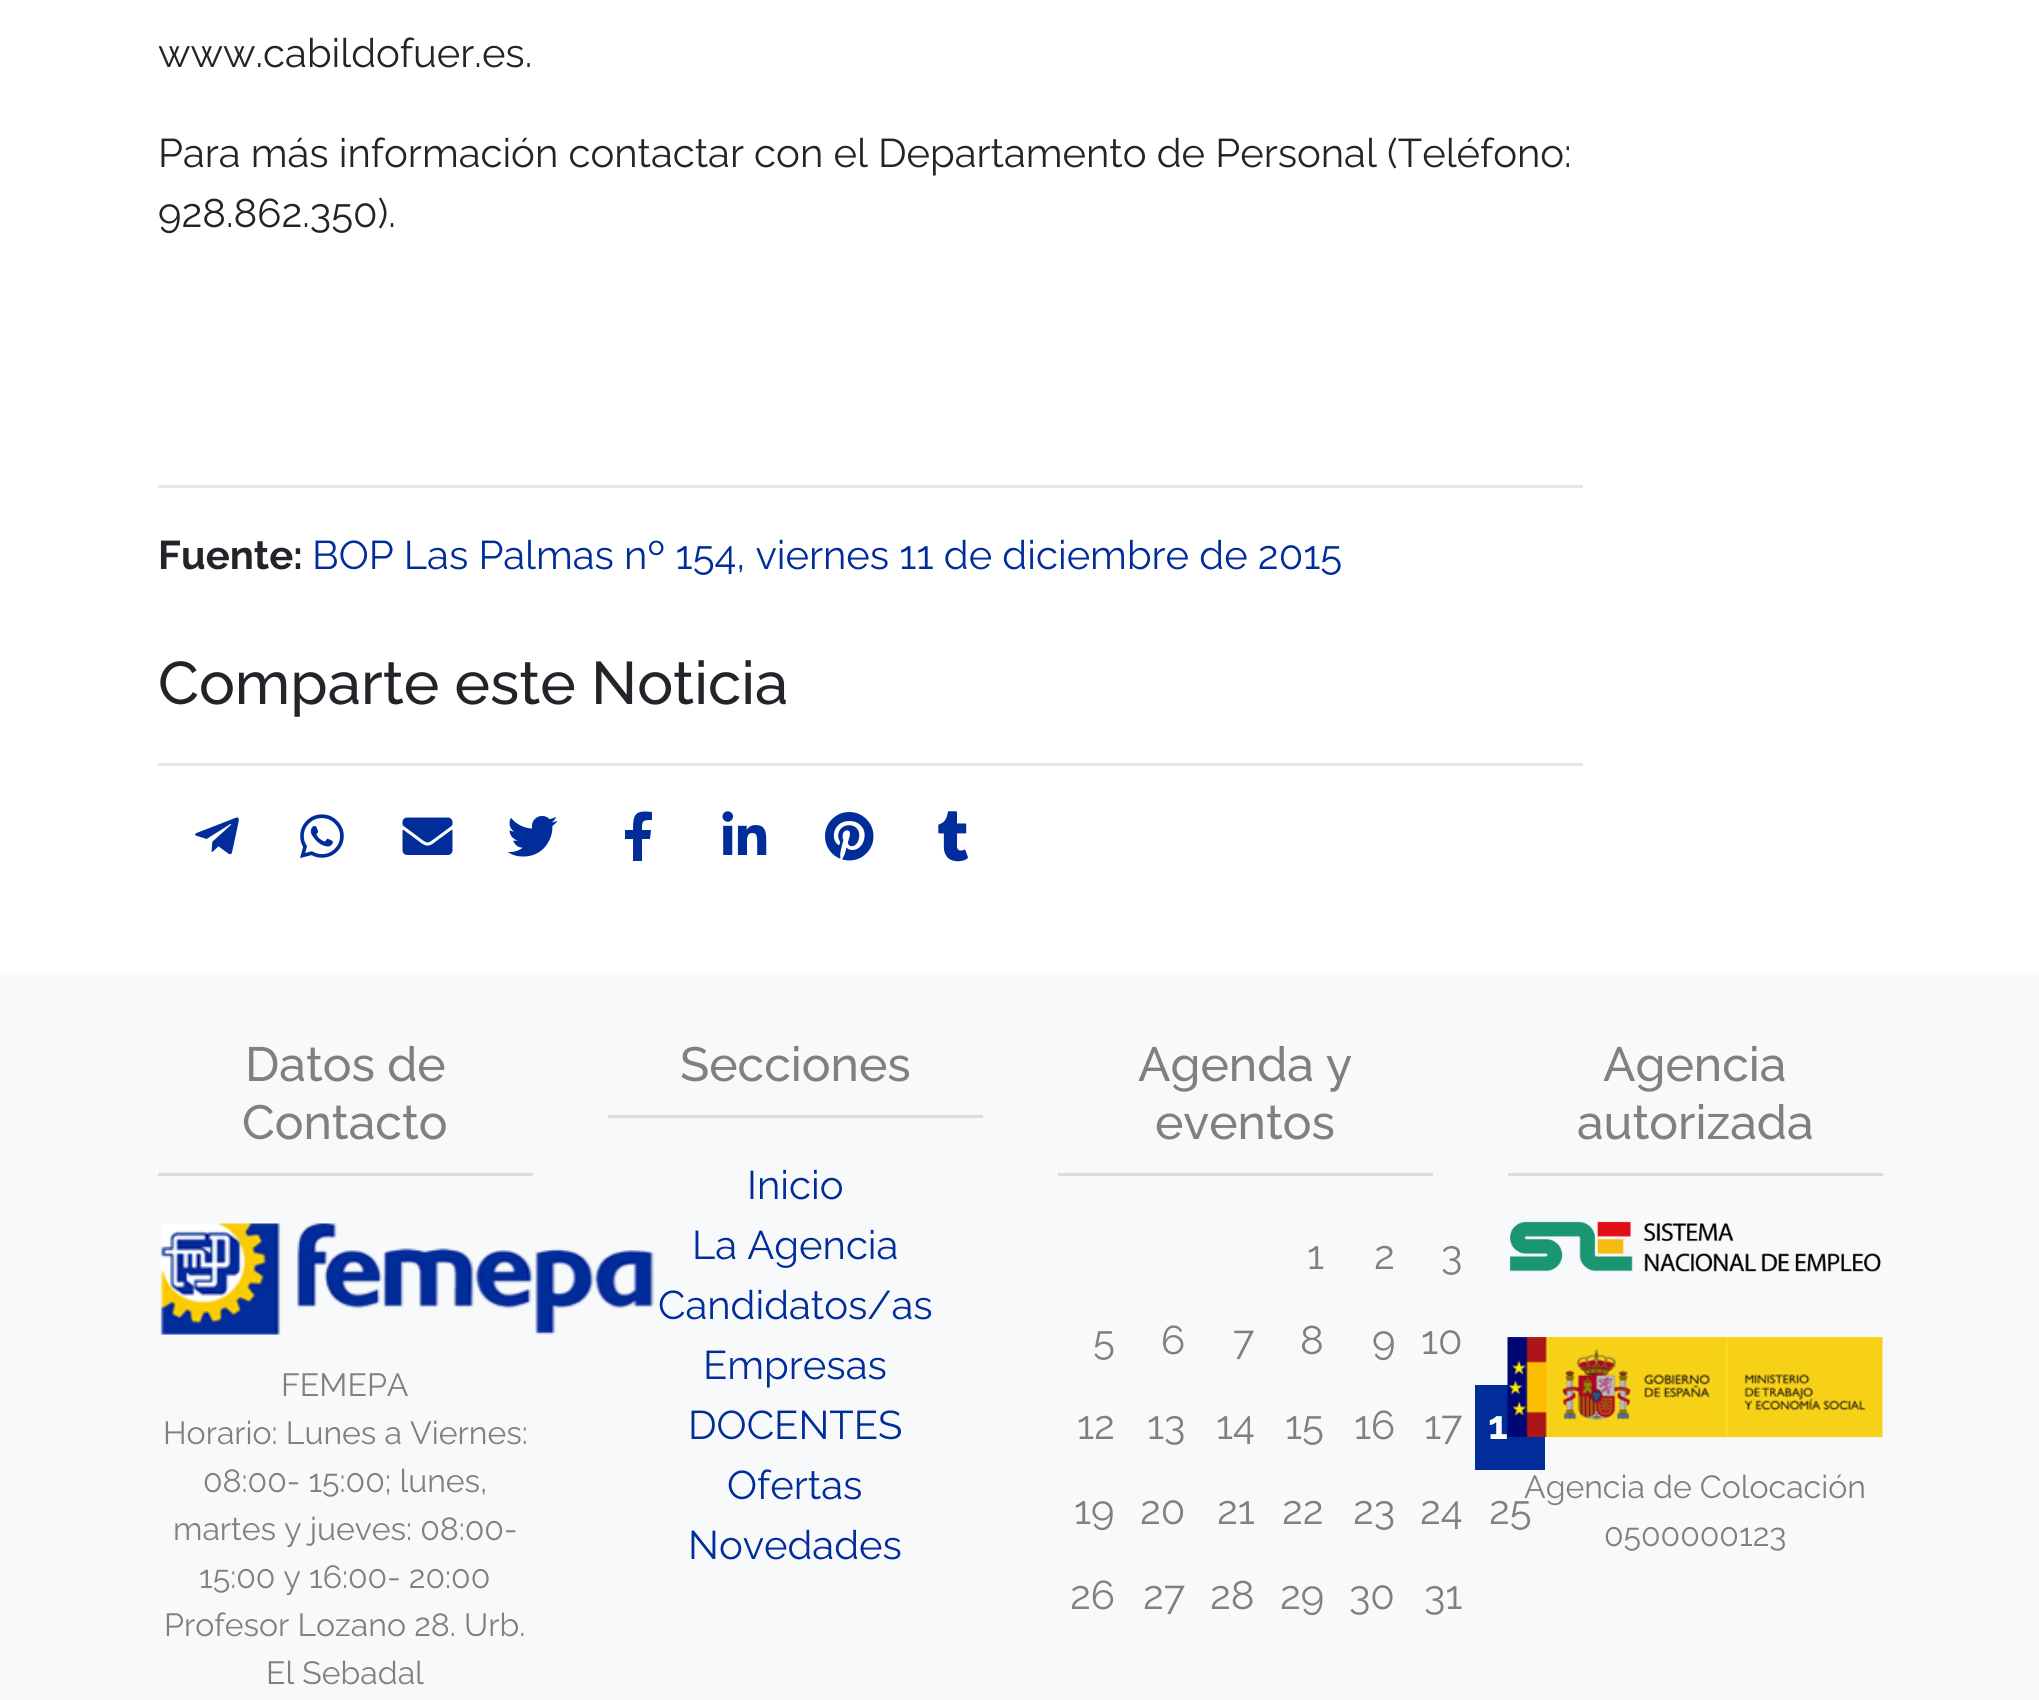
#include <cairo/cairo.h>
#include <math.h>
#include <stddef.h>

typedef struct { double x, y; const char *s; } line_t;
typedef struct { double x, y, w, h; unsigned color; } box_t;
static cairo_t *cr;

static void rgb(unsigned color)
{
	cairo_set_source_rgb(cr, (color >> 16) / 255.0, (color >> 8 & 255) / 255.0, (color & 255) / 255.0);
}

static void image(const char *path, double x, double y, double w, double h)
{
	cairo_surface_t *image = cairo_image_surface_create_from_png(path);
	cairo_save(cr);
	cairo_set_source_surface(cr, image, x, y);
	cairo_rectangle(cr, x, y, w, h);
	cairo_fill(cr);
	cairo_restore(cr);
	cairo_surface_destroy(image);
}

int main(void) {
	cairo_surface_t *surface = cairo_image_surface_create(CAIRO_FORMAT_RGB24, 2039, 1700);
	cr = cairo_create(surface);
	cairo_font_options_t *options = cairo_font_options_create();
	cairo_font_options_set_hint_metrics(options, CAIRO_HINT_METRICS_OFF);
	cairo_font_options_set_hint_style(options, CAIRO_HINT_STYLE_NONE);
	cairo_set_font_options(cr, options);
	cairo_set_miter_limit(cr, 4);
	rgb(0xffffff);
	cairo_paint(cr);
	rgb(0xe6e6e6);
	cairo_rectangle(cr, 158, 485, 1425, 3);
	cairo_fill(cr);
	cairo_rectangle(cr, 158, 763, 1425, 3);
	cairo_fill(cr);
	image("img/1.png", 195, 817, 44, 38);
	image("img/2.png", 300, 814, 44, 45);
	image("img/3.png", 402, 817, 51, 38);
	image("img/4.png", 507, 815, 51, 42);
	rgb(0x012d9a);
	cairo_new_path(cr);
	cairo_move_to(cr, 650, 839);
	cairo_line_to(cr, 642, 839);
	cairo_line_to(cr, 642, 861);
	cairo_line_to(cr, 633, 861);
	cairo_line_to(cr, 633, 839);
	cairo_line_to(cr, 625, 839);
	cairo_line_to(cr, 625, 830);
	cairo_line_to(cr, 633, 830);
	cairo_curve_to(cr, 633, 814, 635, 810, 652, 812);
	cairo_line_to(cr, 652, 820);
	cairo_curve_to(cr, 642, 820, 642, 821, 642, 830);
	cairo_line_to(cr, 651, 830);
	cairo_close_path(cr);
	cairo_fill(cr);
	image("img/5.png", 722, 811, 45, 44);
	image("img/6.png", 825, 812, 49, 49);
	image("img/7.png", 938, 811, 30, 51);
	rgb(0xf8f9fa);
	cairo_rectangle(cr, 0, 975, 2039, 725);
	cairo_fill(cr);
	rgb(0xdcdcdc);
	cairo_rectangle(cr, 158, 1173, 375, 3);
	cairo_fill(cr);
	image("img/8.png", 160, 1223, 495, 112);
	{
		static const box_t items[] = {
			{608, 1115, 375, 3, 0xdcdcdc},
			{1058, 1173, 375, 3, 0xdcdcdc},
			{1475, 1385, 70, 85, 0x012d9a},
			{1508, 1173, 375, 3, 0xdcdcdc},
		};
		for (size_t i = 0; i < sizeof items / sizeof *items; i++) {
			rgb(items[i].color);
			cairo_rectangle(cr, items[i].x, items[i].y, items[i].w, items[i].h);
			cairo_fill(cr);
		}
	}
	image("img/9.png", 1508, 1220, 373, 52);
	image("img/10.png", 1507, 1337, 376, 100);
	cairo_select_font_face(cr, "Raleway", CAIRO_FONT_SLANT_NORMAL, CAIRO_FONT_WEIGHT_NORMAL);
	cairo_set_font_size(cr, 40);
	rgb(0x212529);
	{
		static const line_t items[] = {
			{158, 67, "www.cabildofuer.es."},
			{158, 167, "Para más información contactar con el Departamento de Personal (Teléfono:"},
			{158, 227, "928.862.350)."},
		};
		for (size_t i = 0; i < sizeof items / sizeof *items; i++) {
			cairo_move_to(cr, items[i].x, items[i].y);
			cairo_show_text(cr, items[i].s);
		}
	}
	cairo_select_font_face(cr, "Raleway", CAIRO_FONT_SLANT_NORMAL, CAIRO_FONT_WEIGHT_BOLD);
	cairo_move_to(cr, 158, 569);
	cairo_show_text(cr, "Fuente:");
	cairo_select_font_face(cr, "Raleway", CAIRO_FONT_SLANT_NORMAL, CAIRO_FONT_WEIGHT_NORMAL);
	rgb(0x012d9a);
	cairo_move_to(cr, 312, 569);
	cairo_show_text(cr, "BOP Las Palmas nº 154, viernes 11 de diciembre de 2015");
	cairo_select_font_face(cr, "Raleway Medium", CAIRO_FONT_SLANT_NORMAL, CAIRO_FONT_WEIGHT_NORMAL);
	cairo_set_font_size(cr, 60);
	rgb(0x212529);
	cairo_move_to(cr, 158, 704);
	cairo_show_text(cr, "Comparte este Noticia");
	cairo_set_font_size(cr, 48);
	rgb(0x808080);
	cairo_move_to(cr, 245, 1081);
	cairo_show_text(cr, "Datos de");
	cairo_move_to(cr, 242, 1139);
	cairo_show_text(cr, "Contacto");
	cairo_select_font_face(cr, "Raleway", CAIRO_FONT_SLANT_NORMAL, CAIRO_FONT_WEIGHT_NORMAL);
	cairo_set_font_size(cr, 32);
	{
		static const line_t items[] = {
			{281, 1396, "FEMEPA"},
			{163, 1444, "Horario: Lunes a Viernes:"},
			{203, 1492, "08:00- 15:00; lunes,"},
			{173, 1540, "martes y jueves: 08:00-"},
			{199, 1588, "15:00 y 16:00- 20:00"},
			{164, 1636, "Profesor Lozano 28. Urb."},
			{266, 1684, "El Sebadal"},
		};
		for (size_t i = 0; i < sizeof items / sizeof *items; i++) {
			cairo_move_to(cr, items[i].x, items[i].y);
			cairo_show_text(cr, items[i].s);
		}
	}
	cairo_select_font_face(cr, "Raleway Medium", CAIRO_FONT_SLANT_NORMAL, CAIRO_FONT_WEIGHT_NORMAL);
	cairo_set_font_size(cr, 48);
	cairo_move_to(cr, 680, 1081);
	cairo_show_text(cr, "Secciones");
	cairo_select_font_face(cr, "Raleway", CAIRO_FONT_SLANT_NORMAL, CAIRO_FONT_WEIGHT_NORMAL);
	cairo_set_font_size(cr, 40);
	rgb(0x012d9a);
	{
		static const line_t items[] = {
			{747, 1199, "Inicio"},
			{692, 1259, "La Agencia"},
			{658, 1319, "Candidatos/as"},
			{703, 1379, "Empresas"},
			{688, 1439, "DOCENTES"},
			{727, 1499, "Ofertas"},
			{688, 1559, "Novedades"},
		};
		for (size_t i = 0; i < sizeof items / sizeof *items; i++) {
			cairo_move_to(cr, items[i].x, items[i].y);
			cairo_show_text(cr, items[i].s);
		}
	}
	cairo_select_font_face(cr, "Raleway Medium", CAIRO_FONT_SLANT_NORMAL, CAIRO_FONT_WEIGHT_NORMAL);
	cairo_set_font_size(cr, 48);
	rgb(0x808080);
	cairo_move_to(cr, 1138, 1081);
	cairo_show_text(cr, "Agenda y");
	cairo_move_to(cr, 1155, 1139);
	cairo_show_text(cr, "eventos");
	cairo_select_font_face(cr, "Raleway", CAIRO_FONT_SLANT_NORMAL, CAIRO_FONT_WEIGHT_NORMAL);
	cairo_set_font_size(cr, 40);
	{
		static const line_t items[] = {
			{1307, 1269, "1"},
			{1374, 1269, "2"},
			{1441, 1269, "3"},
			{1093, 1354, "5"},
			{1161, 1354, "6"},
			{1233, 1354, "7"},
			{1300, 1354, "8"},
			{1372, 1354, "9"},
			{1421, 1354, "10"},
			{1077, 1439, "12"},
			{1147, 1439, "13"},
			{1216, 1439, "14"},
			{1285, 1439, "15"},
			{1354, 1439, "16"},
			{1424, 1439, "17"},
		};
		for (size_t i = 0; i < sizeof items / sizeof *items; i++) {
			cairo_move_to(cr, items[i].x, items[i].y);
			cairo_show_text(cr, items[i].s);
		}
	}
	cairo_select_font_face(cr, "Raleway", CAIRO_FONT_SLANT_NORMAL, CAIRO_FONT_WEIGHT_BOLD);
	rgb(0xffffff);
	cairo_move_to(cr, 1488, 1439);
	cairo_show_text(cr, "1");
	cairo_select_font_face(cr, "Raleway", CAIRO_FONT_SLANT_NORMAL, CAIRO_FONT_WEIGHT_NORMAL);
	rgb(0x808080);
	{
		static const line_t items[] = {
			{1074, 1524, "19"},
			{1140, 1524, "20"},
			{1217, 1524, "21"},
			{1282, 1524, "22"},
			{1353, 1524, "23"},
			{1420, 1524, "24"},
			{1489, 1524, "25"},
			{1070, 1609, "26"},
			{1143, 1609, "27"},
			{1210, 1609, "28"},
			{1280, 1609, "29"},
			{1349, 1609, "30"},
			{1424, 1609, "31"},
		};
		for (size_t i = 0; i < sizeof items / sizeof *items; i++) {
			cairo_move_to(cr, items[i].x, items[i].y);
			cairo_show_text(cr, items[i].s);
		}
	}
	cairo_select_font_face(cr, "Raleway Medium", CAIRO_FONT_SLANT_NORMAL, CAIRO_FONT_WEIGHT_NORMAL);
	cairo_set_font_size(cr, 48);
	cairo_move_to(cr, 1603, 1081);
	cairo_show_text(cr, "Agencia");
	cairo_move_to(cr, 1577, 1139);
	cairo_show_text(cr, "autorizada");
	cairo_select_font_face(cr, "Raleway", CAIRO_FONT_SLANT_NORMAL, CAIRO_FONT_WEIGHT_NORMAL);
	cairo_set_font_size(cr, 32);
	cairo_move_to(cr, 1524, 1498);
	cairo_show_text(cr, "Agencia de Colocación");
	cairo_move_to(cr, 1604, 1546);
	cairo_show_text(cr, "0500000123");
	cairo_surface_write_to_png(surface, "page.png");
	cairo_font_options_destroy(options);
	cairo_destroy(cr);
	cairo_surface_destroy(surface);
	return 0;
}
